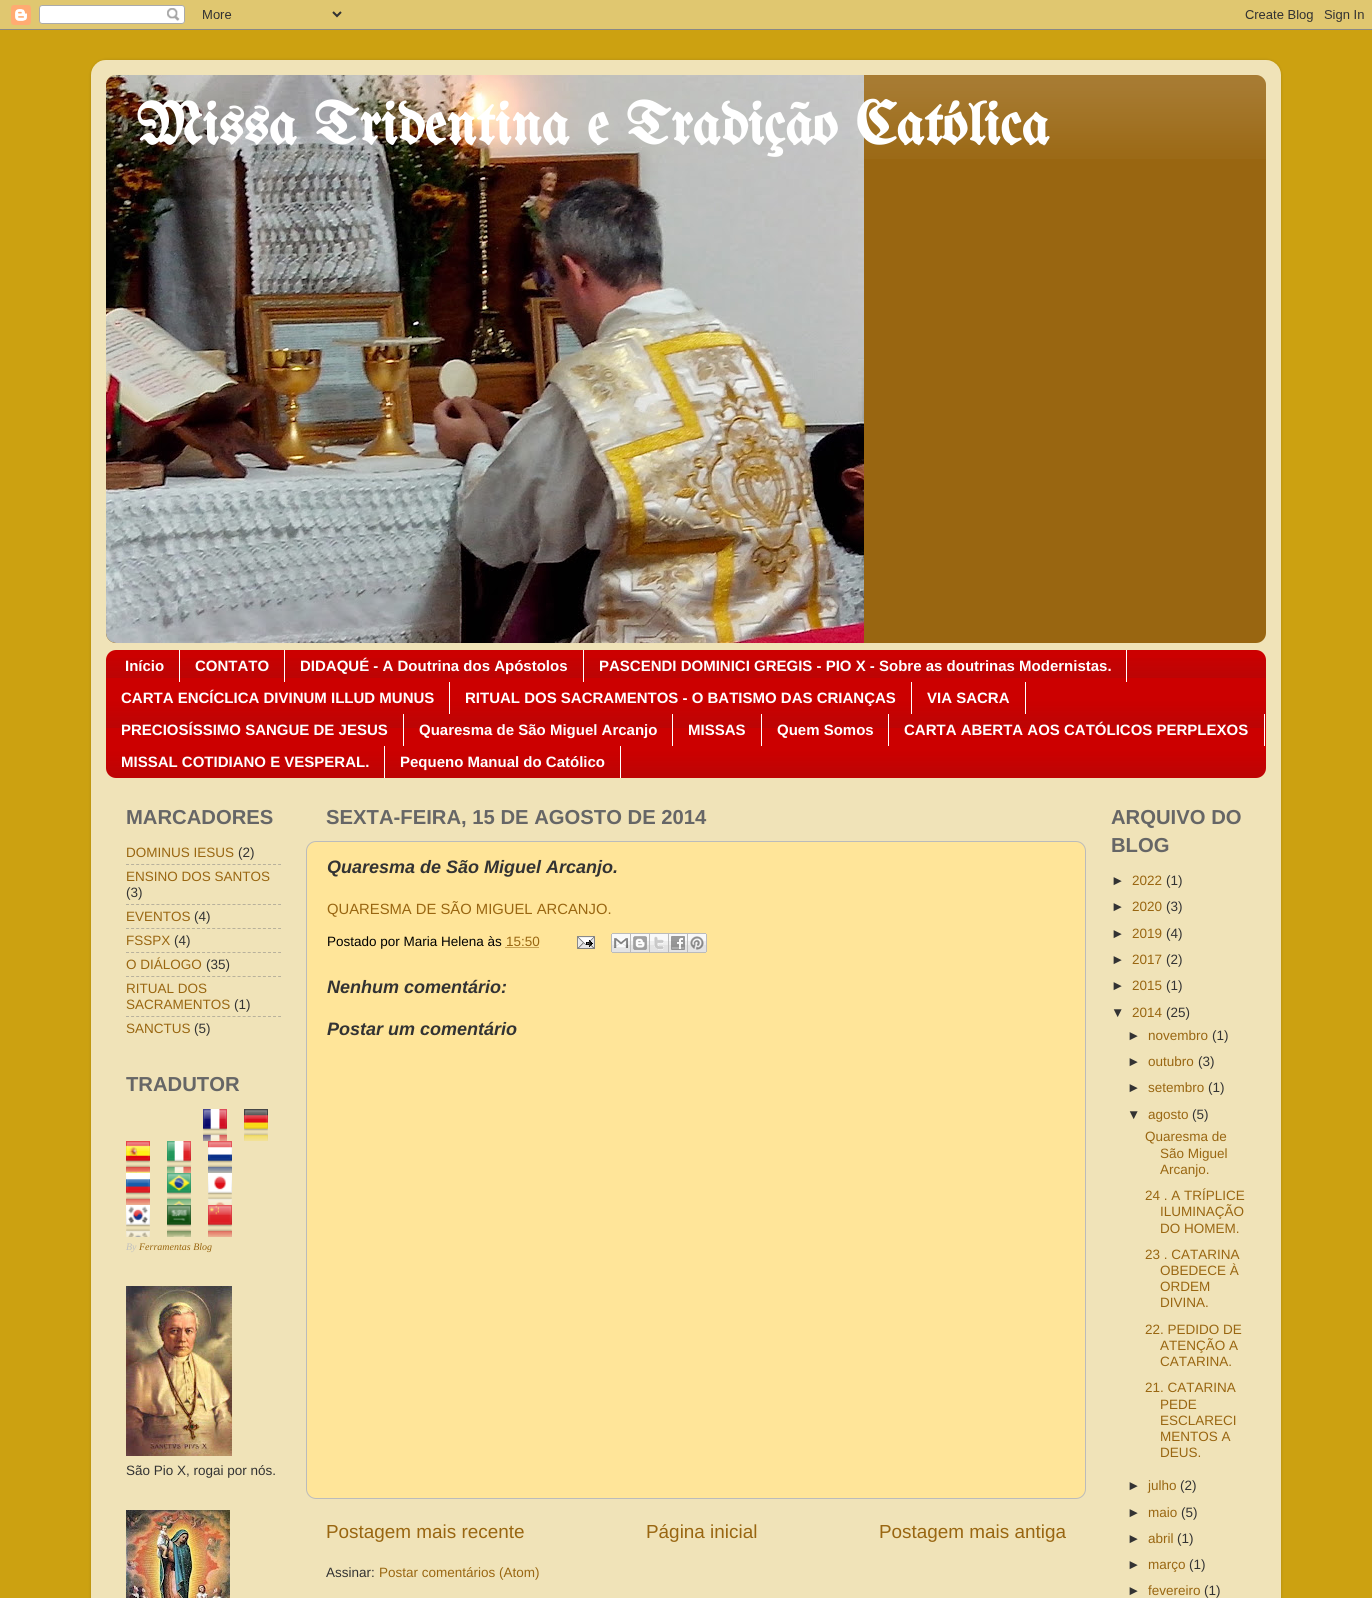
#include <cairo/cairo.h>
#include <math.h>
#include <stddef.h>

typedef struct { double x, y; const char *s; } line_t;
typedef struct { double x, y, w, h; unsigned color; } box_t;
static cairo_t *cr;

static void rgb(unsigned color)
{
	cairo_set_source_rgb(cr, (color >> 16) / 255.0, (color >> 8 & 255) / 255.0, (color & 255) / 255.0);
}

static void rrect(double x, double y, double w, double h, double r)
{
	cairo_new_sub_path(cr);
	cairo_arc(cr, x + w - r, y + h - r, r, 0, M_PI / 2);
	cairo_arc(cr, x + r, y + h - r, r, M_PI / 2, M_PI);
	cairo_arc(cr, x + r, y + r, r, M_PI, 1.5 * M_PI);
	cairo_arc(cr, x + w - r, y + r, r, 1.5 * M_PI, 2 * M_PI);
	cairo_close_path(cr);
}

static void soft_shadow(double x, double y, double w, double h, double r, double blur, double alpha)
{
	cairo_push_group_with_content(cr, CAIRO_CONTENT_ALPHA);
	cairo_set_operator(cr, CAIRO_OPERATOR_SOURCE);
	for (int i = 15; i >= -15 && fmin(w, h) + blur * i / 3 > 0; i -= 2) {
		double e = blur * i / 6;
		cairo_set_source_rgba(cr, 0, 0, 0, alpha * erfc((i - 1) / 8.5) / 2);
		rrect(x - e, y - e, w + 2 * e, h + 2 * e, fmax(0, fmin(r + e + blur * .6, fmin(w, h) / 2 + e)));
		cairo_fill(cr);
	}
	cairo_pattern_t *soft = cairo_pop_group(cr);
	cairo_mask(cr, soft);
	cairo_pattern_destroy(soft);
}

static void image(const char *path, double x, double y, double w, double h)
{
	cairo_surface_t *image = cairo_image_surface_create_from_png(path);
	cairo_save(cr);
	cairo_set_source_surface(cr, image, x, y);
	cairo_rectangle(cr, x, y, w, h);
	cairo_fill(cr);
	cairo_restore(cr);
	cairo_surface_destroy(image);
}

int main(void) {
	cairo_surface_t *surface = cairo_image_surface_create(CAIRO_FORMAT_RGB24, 1372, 1598);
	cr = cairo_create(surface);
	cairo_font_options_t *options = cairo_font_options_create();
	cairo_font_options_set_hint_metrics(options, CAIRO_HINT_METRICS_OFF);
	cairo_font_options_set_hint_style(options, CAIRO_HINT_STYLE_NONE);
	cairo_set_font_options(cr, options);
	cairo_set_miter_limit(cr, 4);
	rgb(0xcca111);
	cairo_paint(cr);
	image("img/1.png", 0, 0, 1372, 30);
	cairo_save(cr);
	cairo_set_fill_rule(cr, CAIRO_FILL_RULE_EVEN_ODD);
	cairo_new_path(cr);
	cairo_move_to(cr, 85, 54);
	cairo_line_to(cr, 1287, 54);
	cairo_line_to(cr, 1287, 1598);
	cairo_line_to(cr, 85, 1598);
	cairo_close_path(cr);
	cairo_move_to(cr, 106, 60);
	cairo_line_to(cr, 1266, 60);
	cairo_curve_to(cr, 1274.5, 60, 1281, 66.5, 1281, 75);
	cairo_line_to(cr, 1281, 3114);
	cairo_curve_to(cr, 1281, 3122.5, 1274.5, 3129, 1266, 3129);
	cairo_line_to(cr, 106, 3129);
	cairo_curve_to(cr, 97.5, 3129, 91, 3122.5, 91, 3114);
	cairo_line_to(cr, 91, 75);
	cairo_curve_to(cr, 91, 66.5, 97.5, 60, 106, 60);
	cairo_close_path(cr);
	cairo_clip(cr);
	rgb(0x000000);
	soft_shadow(91, 60, 1190, 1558, 15, 1.5, 0.15);
	cairo_restore(cr);
	image("img/2.png", 91, 60, 1190, 1538);
	rgb(0x996611);
	rrect(106, 75, 1160, 568, 10);
	cairo_fill(cr);
	image("img/3.png", 106, 75, 1160, 84);
	image("img/4.png", 106, 75, 758, 568);
	rgb(0xcc0000);
	rrect(106, 650, 1160, 128, 10);
	cairo_fill(cr);
	image("img/5.png", 106, 658, 1160, 120);
	{
		static const box_t items[] = {
			{179, 650, 1, 32, 0xffffff},
			{284, 650, 1, 32, 0xffffff},
			{583, 650, 1, 32, 0xffffff},
			{1126, 650, 1, 32, 0xffffff},
			{449, 682, 1, 32, 0xffffff},
			{911, 682, 1, 32, 0xffffff},
			{1025, 682, 1, 32, 0xffffff},
			{403, 714, 1, 32, 0xffffff},
			{672, 714, 1, 32, 0xffffff},
			{761, 714, 1, 32, 0xffffff},
			{888, 714, 1, 32, 0xffffff},
			{1264, 714, 1, 32, 0xffffff},
			{384, 746, 1, 32, 0xffffff},
			{620, 746, 1, 32, 0xffffff},
		};
		for (size_t i = 0; i < sizeof items / sizeof *items; i++) {
			rgb(items[i].color);
			cairo_rectangle(cr, items[i].x, items[i].y, items[i].w, items[i].h);
			cairo_fill(cr);
		}
	}
	cairo_new_path(cr);
	cairo_move_to(cr, 126, 864.5);
	cairo_line_to(cr, 281, 864.5);
	rgb(0xb8b19c);
	cairo_set_line_width(cr, 1);
	cairo_set_dash(cr, (double[]){3, 2.07}, 2, 0);
	cairo_stroke(cr);
	cairo_new_path(cr);
	cairo_move_to(cr, 126, 904.5);
	cairo_line_to(cr, 281, 904.5);
	cairo_stroke(cr);
	cairo_new_path(cr);
	cairo_move_to(cr, 126, 928.5);
	cairo_line_to(cr, 281, 928.5);
	cairo_stroke(cr);
	cairo_new_path(cr);
	cairo_move_to(cr, 126, 952.5);
	cairo_line_to(cr, 281, 952.5);
	cairo_stroke(cr);
	cairo_new_path(cr);
	cairo_move_to(cr, 126, 976.5);
	cairo_line_to(cr, 281, 976.5);
	cairo_stroke(cr);
	cairo_new_path(cr);
	cairo_move_to(cr, 126, 1016.5);
	cairo_line_to(cr, 281, 1016.5);
	cairo_stroke(cr);
	image("img/6.png", 203, 1109, 24, 32);
	image("img/7.png", 244, 1109, 24, 32);
	image("img/8.png", 126, 1141, 24, 32);
	image("img/9.png", 167, 1141, 24, 32);
	image("img/10.png", 208, 1141, 24, 32);
	image("img/11.png", 126, 1173, 24, 32);
	image("img/12.png", 167, 1173, 24, 32);
	image("img/13.png", 208, 1173, 24, 32);
	image("img/14.png", 126, 1205, 24, 32);
	image("img/15.png", 167, 1205, 24, 32);
	image("img/16.png", 208, 1205, 24, 32);
	image("img/17.png", 126, 1286, 106, 170);
	image("img/18.png", 126, 1510, 104, 88);
	rgb(0xffe599);
	rrect(306.5, 841.5, 779, 657, 9.5);
	cairo_fill_preserve(cr);
	rgb(0xbbbbbb);
	cairo_set_dash(cr, NULL, 0, 0);
	cairo_stroke(cr);
	cairo_new_path(cr);
	cairo_move_to(cr, 505.5, 947.5);
	cairo_line_to(cr, 539.5, 947.5);
	rgb(0x996611);
	cairo_set_dash(cr, (double[]){1, 1}, 2, 0);
	cairo_stroke(cr);
	image("img/19.png", 577, 936, 18, 13);
	image("img/20.png", 611, 933, 20, 20);
	image("img/21.png", 631, 933, 19, 20);
	image("img/22.png", 650, 933, 19, 20);
	image("img/23.png", 669, 933, 19, 20);
	image("img/24.png", 688, 933, 19, 20);
	cairo_select_font_face(cr, "UnifrakturMaguntia", CAIRO_FONT_SLANT_NORMAL, CAIRO_FONT_WEIGHT_BOLD);
	cairo_set_font_size(cr, 60);
	rgb(0xffffff);
	cairo_move_to(cr, 136, 144);
	cairo_show_text(cr, "Missa Tridentina e Tradição Católica");
	cairo_select_font_face(cr, "Liberation Sans", CAIRO_FONT_SLANT_NORMAL, CAIRO_FONT_WEIGHT_BOLD);
	cairo_set_font_size(cr, 15);
	{
		static const line_t items[] = {
			{125, 671, "Início"},
			{195, 671, "CONTATO"},
			{300, 671, "DIDAQUÉ - A Doutrina dos Apóstolos"},
			{599, 671, "PASCENDI DOMINICI GREGIS - PIO X - Sobre as doutrinas Modernistas."},
			{121, 703, "CARTA ENCÍCLICA DIVINUM ILLUD MUNUS"},
			{465, 703, "RITUAL DOS SACRAMENTOS - O BATISMO DAS CRIANÇAS"},
			{927, 703, "VIA SACRA"},
			{121, 735, "PRECIOSÍSSIMO SANGUE DE JESUS"},
			{419, 735, "Quaresma de São Miguel Arcanjo"},
			{688, 735, "MISSAS"},
			{777, 735, "Quem Somos"},
			{904, 735, "CARTA ABERTA AOS CATÓLICOS PERPLEXOS"},
			{121, 767, "MISSAL COTIDIANO E VESPERAL."},
			{400, 767, "Pequeno Manual do Católico"},
		};
		for (size_t i = 0; i < sizeof items / sizeof *items; i++) {
			cairo_move_to(cr, items[i].x, items[i].y);
			cairo_show_text(cr, items[i].s);
		}
	}
	cairo_set_font_size(cr, 20.25);
	rgb(0x666666);
	cairo_move_to(cr, 126, 824);
	cairo_show_text(cr, "MARCADORES");
	cairo_select_font_face(cr, "Liberation Sans", CAIRO_FONT_SLANT_NORMAL, CAIRO_FONT_WEIGHT_NORMAL);
	cairo_set_font_size(cr, 13.5);
	rgb(0x996611);
	cairo_move_to(cr, 126, 857);
	cairo_show_text(cr, "DOMINUS IESUS");
	rgb(0x333333);
	cairo_move_to(cr, 238, 857);
	cairo_show_text(cr, "(2)");
	rgb(0x996611);
	cairo_move_to(cr, 126, 881);
	cairo_show_text(cr, "ENSINO DOS SANTOS");
	rgb(0x333333);
	cairo_move_to(cr, 126, 897);
	cairo_show_text(cr, "(3)");
	rgb(0x996611);
	cairo_move_to(cr, 126, 921);
	cairo_show_text(cr, "EVENTOS");
	rgb(0x333333);
	cairo_move_to(cr, 194, 921);
	cairo_show_text(cr, "(4)");
	rgb(0x996611);
	cairo_move_to(cr, 126, 945);
	cairo_show_text(cr, "FSSPX");
	rgb(0x333333);
	cairo_move_to(cr, 174, 945);
	cairo_show_text(cr, "(4)");
	rgb(0x996611);
	cairo_move_to(cr, 126, 969);
	cairo_show_text(cr, "O DIÁLOGO");
	rgb(0x333333);
	cairo_move_to(cr, 206, 969);
	cairo_show_text(cr, "(35)");
	rgb(0x996611);
	cairo_move_to(cr, 126, 993);
	cairo_show_text(cr, "RITUAL DOS");
	cairo_move_to(cr, 126, 1009);
	cairo_show_text(cr, "SACRAMENTOS");
	rgb(0x333333);
	cairo_move_to(cr, 234, 1009);
	cairo_show_text(cr, "(1)");
	rgb(0x996611);
	cairo_move_to(cr, 126, 1033);
	cairo_show_text(cr, "SANCTUS");
	rgb(0x333333);
	cairo_move_to(cr, 194, 1033);
	cairo_show_text(cr, "(5)");
	cairo_select_font_face(cr, "Liberation Sans", CAIRO_FONT_SLANT_NORMAL, CAIRO_FONT_WEIGHT_BOLD);
	cairo_set_font_size(cr, 20.25);
	rgb(0x666666);
	cairo_move_to(cr, 126, 1091);
	cairo_show_text(cr, "TRADUTOR");
	cairo_select_font_face(cr, "Liberation Serif", CAIRO_FONT_SLANT_ITALIC, CAIRO_FONT_WEIGHT_NORMAL);
	cairo_set_font_size(cr, 10);
	rgb(0xc0c0c0);
	cairo_move_to(cr, 126, 1250);
	cairo_show_text(cr, "By");
	rgb(0x996611);
	cairo_move_to(cr, 139, 1250);
	cairo_show_text(cr, "Ferramentas Blog");
	cairo_select_font_face(cr, "Liberation Sans", CAIRO_FONT_SLANT_NORMAL, CAIRO_FONT_WEIGHT_NORMAL);
	cairo_set_font_size(cr, 13.5);
	rgb(0x333333);
	cairo_move_to(cr, 126, 1475);
	cairo_show_text(cr, "São Pio X, rogai por nós.");
	cairo_select_font_face(cr, "Liberation Sans", CAIRO_FONT_SLANT_NORMAL, CAIRO_FONT_WEIGHT_BOLD);
	cairo_set_font_size(cr, 20.25);
	rgb(0x666666);
	cairo_move_to(cr, 326, 824);
	cairo_show_text(cr, "SEXTA-FEIRA, 15 DE AGOSTO DE 2014");
	cairo_select_font_face(cr, "Liberation Sans", CAIRO_FONT_SLANT_ITALIC, CAIRO_FONT_WEIGHT_BOLD);
	cairo_set_font_size(cr, 18);
	rgb(0x333333);
	cairo_move_to(cr, 327, 873);
	cairo_show_text(cr, "Quaresma de São Miguel Arcanjo.");
	cairo_select_font_face(cr, "Liberation Sans", CAIRO_FONT_SLANT_NORMAL, CAIRO_FONT_WEIGHT_NORMAL);
	cairo_set_font_size(cr, 14.8);
	rgb(0x996611);
	cairo_move_to(cr, 327, 914);
	cairo_show_text(cr, "QUARESMA DE SÃO MIGUEL ARCANJO.");
	cairo_set_font_size(cr, 13.5);
	rgb(0x000000);
	cairo_move_to(cr, 327, 946);
	cairo_show_text(cr, "Postado por Maria Helena às");
	rgb(0x996611);
	cairo_move_to(cr, 506, 946);
	cairo_show_text(cr, "15:50");
	cairo_select_font_face(cr, "Liberation Sans", CAIRO_FONT_SLANT_ITALIC, CAIRO_FONT_WEIGHT_BOLD);
	cairo_set_font_size(cr, 18);
	rgb(0x333333);
	cairo_move_to(cr, 327, 993);
	cairo_show_text(cr, "Nenhum comentário:");
	cairo_move_to(cr, 327, 1035);
	cairo_show_text(cr, "Postar um comentário");
	cairo_select_font_face(cr, "Liberation Sans", CAIRO_FONT_SLANT_NORMAL, CAIRO_FONT_WEIGHT_NORMAL);
	cairo_set_font_size(cr, 18.9);
	rgb(0x996611);
	{
		static const line_t items[] = {
			{326, 1538, "Postagem mais recente"},
			{646, 1538, "Página inicial"},
			{879, 1538, "Postagem mais antiga"},
		};
		for (size_t i = 0; i < sizeof items / sizeof *items; i++) {
			cairo_move_to(cr, items[i].x, items[i].y);
			cairo_show_text(cr, items[i].s);
		}
	}
	cairo_set_font_size(cr, 13.5);
	rgb(0x333333);
	cairo_move_to(cr, 326, 1577);
	cairo_show_text(cr, "Assinar:");
	rgb(0x996611);
	cairo_move_to(cr, 379, 1577);
	cairo_show_text(cr, "Postar comentários (Atom)");
	cairo_select_font_face(cr, "Liberation Sans", CAIRO_FONT_SLANT_NORMAL, CAIRO_FONT_WEIGHT_BOLD);
	cairo_set_font_size(cr, 20.25);
	rgb(0x666666);
	cairo_move_to(cr, 1111, 824);
	cairo_show_text(cr, "ARQUIVO DO");
	cairo_move_to(cr, 1111, 852);
	cairo_show_text(cr, "BLOG");
	cairo_select_font_face(cr, "Liberation Sans", CAIRO_FONT_SLANT_NORMAL, CAIRO_FONT_WEIGHT_NORMAL);
	cairo_set_font_size(cr, 13.5);
	rgb(0x333333);
	cairo_move_to(cr, 1111, 885);
	cairo_show_text(cr, "►");
	rgb(0x996611);
	cairo_move_to(cr, 1132, 885);
	cairo_show_text(cr, "2022");
	rgb(0x333333);
	cairo_move_to(cr, 1166, 885);
	cairo_show_text(cr, "(1)");
	cairo_move_to(cr, 1111, 911);
	cairo_show_text(cr, "►");
	rgb(0x996611);
	cairo_move_to(cr, 1132, 911);
	cairo_show_text(cr, "2020");
	rgb(0x333333);
	cairo_move_to(cr, 1166, 911);
	cairo_show_text(cr, "(3)");
	cairo_move_to(cr, 1111, 938);
	cairo_show_text(cr, "►");
	rgb(0x996611);
	cairo_move_to(cr, 1132, 938);
	cairo_show_text(cr, "2019");
	rgb(0x333333);
	cairo_move_to(cr, 1166, 938);
	cairo_show_text(cr, "(4)");
	cairo_move_to(cr, 1111, 964);
	cairo_show_text(cr, "►");
	rgb(0x996611);
	cairo_move_to(cr, 1132, 964);
	cairo_show_text(cr, "2017");
	rgb(0x333333);
	cairo_move_to(cr, 1166, 964);
	cairo_show_text(cr, "(2)");
	cairo_move_to(cr, 1111, 990);
	cairo_show_text(cr, "►");
	rgb(0x996611);
	cairo_move_to(cr, 1132, 990);
	cairo_show_text(cr, "2015");
	rgb(0x333333);
	cairo_move_to(cr, 1166, 990);
	cairo_show_text(cr, "(1)");
	cairo_move_to(cr, 1111, 1017);
	cairo_show_text(cr, "▼");
	rgb(0x996611);
	cairo_move_to(cr, 1132, 1017);
	cairo_show_text(cr, "2014");
	rgb(0x333333);
	cairo_move_to(cr, 1166, 1017);
	cairo_show_text(cr, "(25)");
	cairo_move_to(cr, 1127, 1040);
	cairo_show_text(cr, "►");
	rgb(0x996611);
	cairo_move_to(cr, 1148, 1040);
	cairo_show_text(cr, "novembro");
	rgb(0x333333);
	cairo_move_to(cr, 1212, 1040);
	cairo_show_text(cr, "(1)");
	cairo_move_to(cr, 1127, 1066);
	cairo_show_text(cr, "►");
	rgb(0x996611);
	cairo_move_to(cr, 1148, 1066);
	cairo_show_text(cr, "outubro");
	rgb(0x333333);
	cairo_move_to(cr, 1198, 1066);
	cairo_show_text(cr, "(3)");
	cairo_move_to(cr, 1127, 1092);
	cairo_show_text(cr, "►");
	rgb(0x996611);
	cairo_move_to(cr, 1148, 1092);
	cairo_show_text(cr, "setembro");
	rgb(0x333333);
	cairo_move_to(cr, 1208, 1092);
	cairo_show_text(cr, "(1)");
	cairo_move_to(cr, 1127, 1119);
	cairo_show_text(cr, "▼");
	rgb(0x996611);
	cairo_move_to(cr, 1148, 1119);
	cairo_show_text(cr, "agosto");
	rgb(0x333333);
	cairo_move_to(cr, 1192, 1119);
	cairo_show_text(cr, "(5)");
	rgb(0x996611);
	{
		static const line_t items[] = {
			{1145, 1141, "Quaresma de"},
			{1160, 1158, "São Miguel"},
			{1160, 1174, "Arcanjo."},
			{1145, 1200, "24 . A TRÍPLICE"},
			{1160, 1216, "ILUMINAÇÃO"},
			{1160, 1233, "DO HOMEM."},
			{1145, 1259, "23 . CATARINA"},
			{1160, 1275, "OBEDECE À"},
			{1160, 1291, "ORDEM"},
			{1160, 1307, "DIVINA."},
			{1145, 1334, "22. PEDIDO DE"},
			{1160, 1350, "ATENÇÃO A"},
			{1160, 1366, "CATARINA."},
			{1145, 1392, "21. CATARINA"},
			{1160, 1409, "PEDE"},
			{1160, 1425, "ESCLARECI"},
			{1160, 1441, "MENTOS A"},
			{1160, 1457, "DEUS."},
		};
		for (size_t i = 0; i < sizeof items / sizeof *items; i++) {
			cairo_move_to(cr, items[i].x, items[i].y);
			cairo_show_text(cr, items[i].s);
		}
	}
	rgb(0x333333);
	cairo_move_to(cr, 1127, 1490);
	cairo_show_text(cr, "►");
	rgb(0x996611);
	cairo_move_to(cr, 1148, 1490);
	cairo_show_text(cr, "julho");
	rgb(0x333333);
	cairo_move_to(cr, 1180, 1490);
	cairo_show_text(cr, "(2)");
	cairo_move_to(cr, 1127, 1517);
	cairo_show_text(cr, "►");
	rgb(0x996611);
	cairo_move_to(cr, 1148, 1517);
	cairo_show_text(cr, "maio");
	rgb(0x333333);
	cairo_move_to(cr, 1181, 1517);
	cairo_show_text(cr, "(5)");
	cairo_move_to(cr, 1127, 1543);
	cairo_show_text(cr, "►");
	rgb(0x996611);
	cairo_move_to(cr, 1148, 1543);
	cairo_show_text(cr, "abril");
	rgb(0x333333);
	cairo_move_to(cr, 1177, 1543);
	cairo_show_text(cr, "(1)");
	cairo_move_to(cr, 1127, 1569);
	cairo_show_text(cr, "►");
	rgb(0x996611);
	cairo_move_to(cr, 1148, 1569);
	cairo_show_text(cr, "março");
	rgb(0x333333);
	cairo_move_to(cr, 1189, 1569);
	cairo_show_text(cr, "(1)");
	cairo_move_to(cr, 1127, 1595);
	cairo_show_text(cr, "►");
	rgb(0x996611);
	cairo_move_to(cr, 1148, 1595);
	cairo_show_text(cr, "fevereiro");
	rgb(0x333333);
	cairo_move_to(cr, 1204, 1595);
	cairo_show_text(cr, "(1)");
	cairo_surface_write_to_png(surface, "page.png");
	cairo_font_options_destroy(options);
	cairo_destroy(cr);
	cairo_surface_destroy(surface);
	return 0;
}
